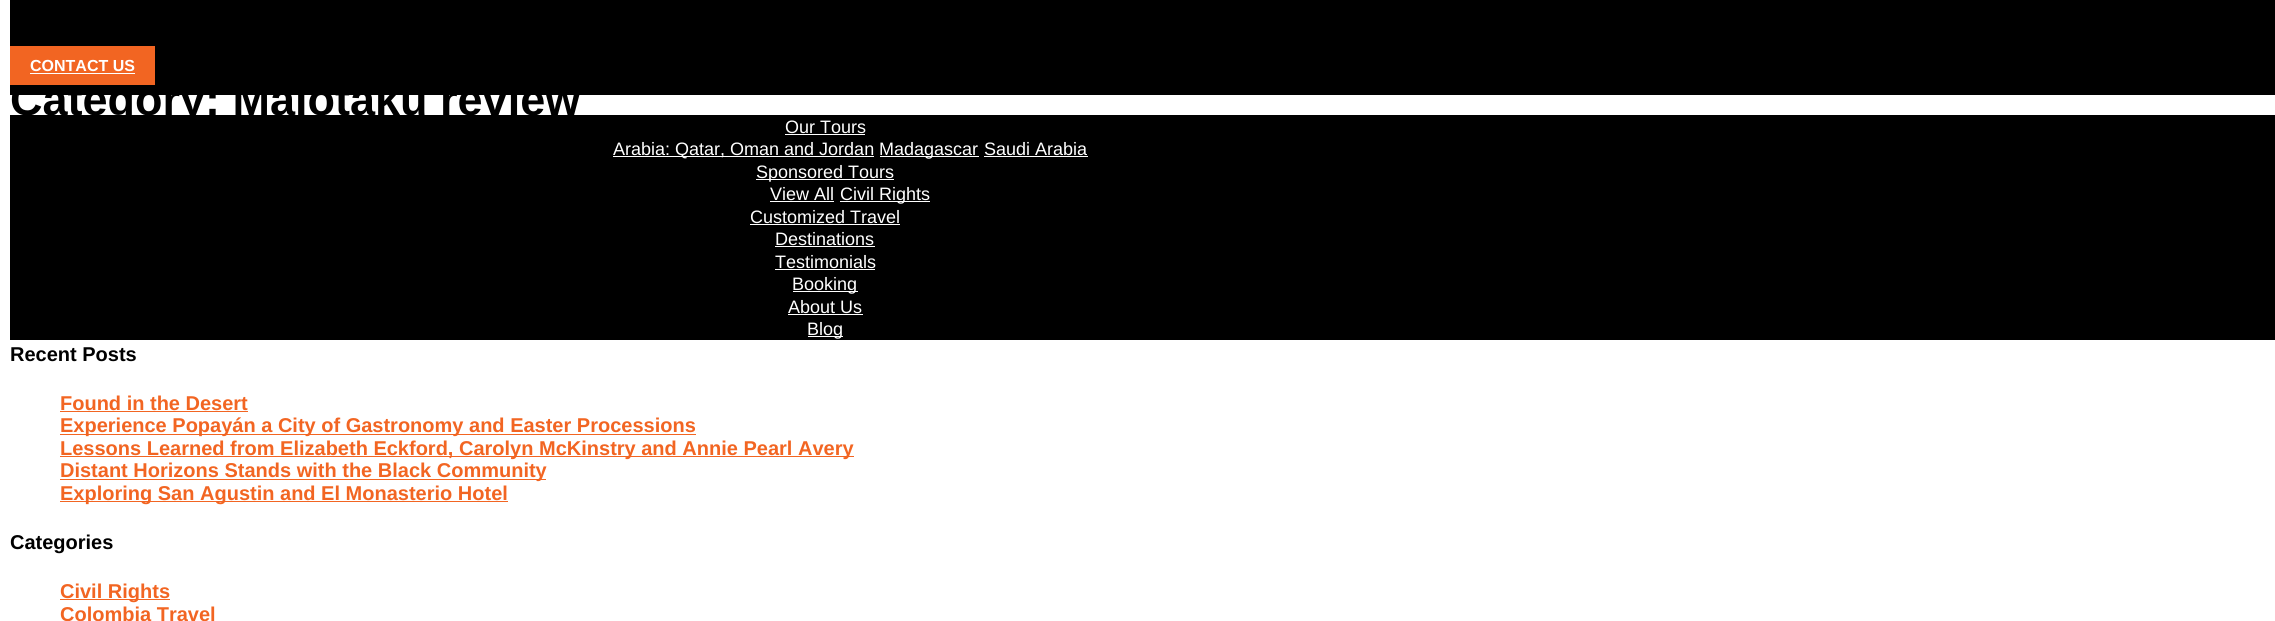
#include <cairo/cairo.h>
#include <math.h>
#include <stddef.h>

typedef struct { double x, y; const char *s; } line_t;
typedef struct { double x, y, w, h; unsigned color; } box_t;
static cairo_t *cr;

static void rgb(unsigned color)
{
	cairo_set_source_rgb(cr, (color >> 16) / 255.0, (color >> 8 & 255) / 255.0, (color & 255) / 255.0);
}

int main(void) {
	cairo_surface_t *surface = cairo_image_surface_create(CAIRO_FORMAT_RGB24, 2275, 621);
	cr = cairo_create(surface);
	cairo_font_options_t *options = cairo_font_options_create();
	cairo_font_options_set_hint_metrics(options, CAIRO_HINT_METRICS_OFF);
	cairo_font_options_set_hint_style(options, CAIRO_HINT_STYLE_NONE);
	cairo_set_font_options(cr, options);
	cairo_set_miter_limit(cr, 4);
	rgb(0xffffff);
	cairo_paint(cr);
	{
		static const box_t items[] = {
			{10, 0, 2265, 95, 0x000000},
			{10, 115, 2265, 225, 0x000000},
			{785, 134, 80, 1, 0xffffff},
			{613, 156, 261, 1, 0xffffff},
			{880, 156, 99, 1, 0xffffff},
			{984, 156, 104, 1, 0xffffff},
			{756, 179, 138, 1, 0xffffff},
			{770, 201, 64, 1, 0xffffff},
			{840, 201, 90, 1, 0xffffff},
			{750, 224, 150, 1, 0xffffff},
			{775, 246, 100, 1, 0xffffff},
			{775, 269, 100, 1, 0xffffff},
			{793, 291, 65, 1, 0xffffff},
			{788, 314, 75, 1, 0xffffff},
			{808, 336, 35, 1, 0xffffff},
			{60, 411, 188, 1, 0xf26522},
			{60, 434, 636, 1, 0xf26522},
			{60, 456, 794, 1, 0xf26522},
			{60, 479, 486, 1, 0xf26522},
			{60, 501, 448, 1, 0xf26522},
			{60, 599, 110, 1, 0xf26522},
		};
		for (size_t i = 0; i < sizeof items / sizeof *items; i++) {
			rgb(items[i].color);
			cairo_rectangle(cr, items[i].x, items[i].y, items[i].w, items[i].h);
			cairo_fill(cr);
		}
	}
	cairo_select_font_face(cr, "Liberation Sans", CAIRO_FONT_SLANT_NORMAL, CAIRO_FONT_WEIGHT_NORMAL);
	cairo_set_font_size(cr, 18);
	rgb(0xffffff);
	{
		static const line_t items[] = {
			{785, 133, "Our Tours"},
			{613, 155, "Arabia: Qatar, Oman and Jordan"},
			{879, 155, "Madagascar"},
			{984, 155, "Saudi Arabia"},
			{756, 178, "Sponsored Tours"},
			{770, 200, "View All"},
			{840, 200, "Civil Rights"},
			{750, 223, "Customized Travel"},
			{775, 245, "Destinations"},
			{775, 268, "Testimonials"},
			{792, 290, "Booking"},
			{788, 313, "About Us"},
			{807, 335, "Blog"},
		};
		for (size_t i = 0; i < sizeof items / sizeof *items; i++) {
			cairo_move_to(cr, items[i].x, items[i].y);
			cairo_show_text(cr, items[i].s);
		}
	}
	cairo_select_font_face(cr, "Liberation Sans", CAIRO_FONT_SLANT_NORMAL, CAIRO_FONT_WEIGHT_BOLD);
	cairo_set_font_size(cr, 45);
	rgb(0x000000);
	cairo_move_to(cr, 10, 115);
	cairo_show_text(cr, "Category: Maiotaku review");
	rgb(0xf26522);
	cairo_rectangle(cr, 10, 46, 145, 39);
	cairo_fill(cr);
	cairo_set_font_size(cr, 16);
	rgb(0xffffff);
	cairo_move_to(cr, 30, 71);
	cairo_show_text(cr, "CONTACT US");
	cairo_rectangle(cr, 30, 73, 105, 1);
	cairo_fill(cr);
	cairo_set_font_size(cr, 20);
	rgb(0x000000);
	cairo_move_to(cr, 10, 361);
	cairo_show_text(cr, "Recent Posts");
	rgb(0xf26522);
	{
		static const line_t items[] = {
			{60, 410, "Found in the Desert"},
			{60, 432, "Experience Popayán a City of Gastronomy and Easter Processions"},
			{60, 455, "Lessons Learned from Elizabeth Eckford, Carolyn McKinstry and Annie Pearl Avery"},
			{60, 477, "Distant Horizons Stands with the Black Community"},
			{60, 500, "Exploring San Agustin and El Monasterio Hotel"},
		};
		for (size_t i = 0; i < sizeof items / sizeof *items; i++) {
			cairo_move_to(cr, items[i].x, items[i].y);
			cairo_show_text(cr, items[i].s);
		}
	}
	rgb(0x000000);
	cairo_move_to(cr, 10, 549);
	cairo_show_text(cr, "Categories");
	rgb(0xf26522);
	cairo_move_to(cr, 60, 598);
	cairo_show_text(cr, "Civil Rights");
	cairo_move_to(cr, 60, 621);
	cairo_show_text(cr, "Colombia Travel");
	cairo_surface_write_to_png(surface, "page.png");
	cairo_font_options_destroy(options);
	cairo_destroy(cr);
	cairo_surface_destroy(surface);
	return 0;
}
